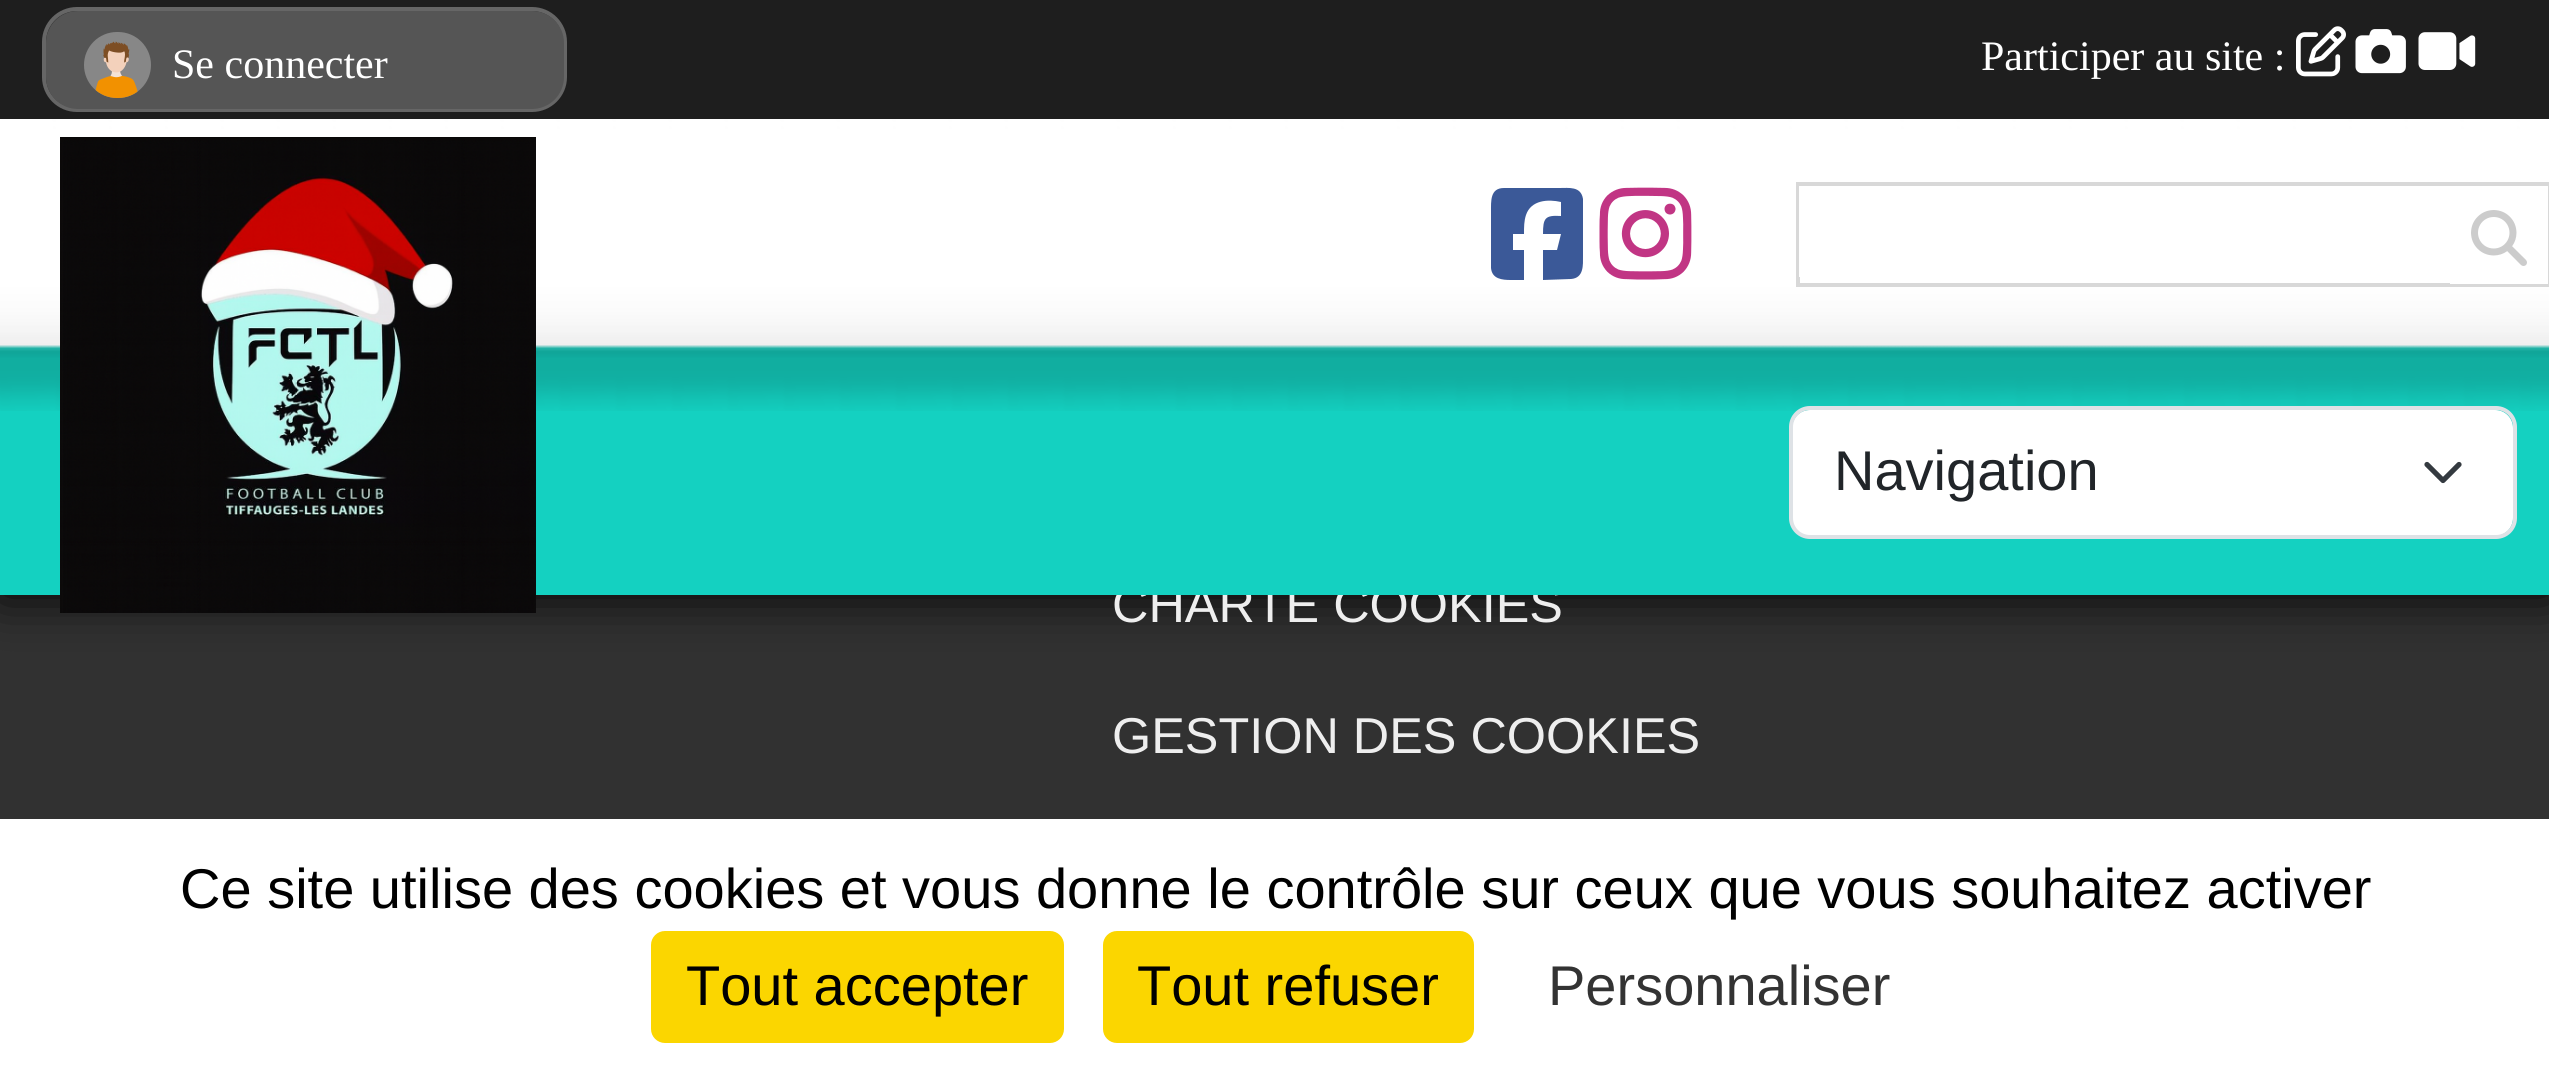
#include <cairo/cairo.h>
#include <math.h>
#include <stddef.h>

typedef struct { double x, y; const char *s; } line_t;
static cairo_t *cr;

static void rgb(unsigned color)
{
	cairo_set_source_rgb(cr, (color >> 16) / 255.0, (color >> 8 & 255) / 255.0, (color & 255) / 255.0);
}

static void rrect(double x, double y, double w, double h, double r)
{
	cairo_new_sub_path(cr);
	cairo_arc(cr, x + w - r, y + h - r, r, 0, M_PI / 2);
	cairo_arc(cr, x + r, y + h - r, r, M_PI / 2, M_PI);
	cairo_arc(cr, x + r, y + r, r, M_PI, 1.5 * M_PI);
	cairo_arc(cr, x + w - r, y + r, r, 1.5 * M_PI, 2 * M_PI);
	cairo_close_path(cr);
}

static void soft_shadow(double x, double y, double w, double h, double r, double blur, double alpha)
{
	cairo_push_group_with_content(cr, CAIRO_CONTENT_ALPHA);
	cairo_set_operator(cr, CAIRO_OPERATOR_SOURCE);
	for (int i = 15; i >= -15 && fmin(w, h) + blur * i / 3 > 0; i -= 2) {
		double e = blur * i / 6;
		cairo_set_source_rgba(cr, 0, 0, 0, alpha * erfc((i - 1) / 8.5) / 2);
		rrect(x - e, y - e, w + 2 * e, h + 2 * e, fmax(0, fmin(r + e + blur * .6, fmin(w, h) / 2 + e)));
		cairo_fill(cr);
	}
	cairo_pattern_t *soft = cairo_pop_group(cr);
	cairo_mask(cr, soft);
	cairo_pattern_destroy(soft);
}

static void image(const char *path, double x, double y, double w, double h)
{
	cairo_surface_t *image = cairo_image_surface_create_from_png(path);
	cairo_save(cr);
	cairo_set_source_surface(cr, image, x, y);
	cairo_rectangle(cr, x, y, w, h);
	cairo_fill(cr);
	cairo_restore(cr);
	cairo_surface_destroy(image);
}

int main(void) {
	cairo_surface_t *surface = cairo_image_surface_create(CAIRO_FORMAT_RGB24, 2549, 1075);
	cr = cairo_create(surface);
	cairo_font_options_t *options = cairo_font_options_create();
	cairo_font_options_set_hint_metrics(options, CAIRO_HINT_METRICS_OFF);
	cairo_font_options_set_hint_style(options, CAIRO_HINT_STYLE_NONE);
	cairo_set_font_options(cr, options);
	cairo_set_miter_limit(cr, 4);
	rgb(0x313131);
	cairo_paint(cr);
	rgb(0x000000);
	soft_shadow(0, 119, 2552, 476, 0, 26, 1);
	rgb(0x1e1e1e);
	cairo_rectangle(cr, 0, 0, 2549, 119);
	cairo_fill(cr);
	rgb(0x333333);
	rrect(44, 9, 521, 101, 33);
	cairo_fill_preserve(cr);
	rgb(0x666666);
	cairo_set_line_width(cr, 4);
	cairo_stroke(cr);
	rgb(0x555555);
	rrect(46, 11, 518, 98, 32);
	cairo_fill(cr);
	image("img/1.png", 84, 32, 67, 66);
	image("img/2.png", 2296, 26, 50, 51);
	image("img/3.png", 2355, 29, 51, 45);
	image("img/4.png", 2418, 32, 58, 38);
	rgb(0xffffff);
	cairo_rectangle(cr, 0, 819, 2549, 256);
	cairo_fill(cr);
	rgb(0xfbd600);
	rrect(651, 931, 413, 112, 14);
	cairo_fill(cr);
	rrect(1103, 931, 371, 112, 14);
	cairo_fill(cr);
	cairo_select_font_face(cr, "Liberation Serif", CAIRO_FONT_SLANT_NORMAL, CAIRO_FONT_WEIGHT_NORMAL);
	cairo_set_font_size(cr, 42);
	rgb(0xffffff);
	cairo_move_to(cr, 172, 78);
	cairo_show_text(cr, "Se connecter");
	cairo_move_to(cr, 1981, 70);
	cairo_show_text(cr, "Participer au site :");
	cairo_select_font_face(cr, "Liberation Sans", CAIRO_FONT_SLANT_NORMAL, CAIRO_FONT_WEIGHT_NORMAL);
	cairo_set_font_size(cr, 50.4);
	rgb(0xeeeeee);
	cairo_move_to(cr, 1112, 622);
	cairo_show_text(cr, "CHARTE COOKIES");
	rgb(0x14d1c1);
	cairo_rectangle(cr, 0, 345, 2549, 250);
	cairo_fill(cr);
	image("img/5.png", 0, 119, 2549, 292);
	rgb(0xffffff);
	rrect(1792, 410, 721, 126, 18);
	cairo_fill(cr);
	cairo_new_path(cr);
	cairo_move_to(cr, 2427, 464.5);
	cairo_line_to(cr, 2443, 480.5);
	cairo_line_to(cr, 2459, 464.5);
	rgb(0x343a40);
	cairo_set_line_width(cr, 5.2);
	cairo_set_line_cap(cr, CAIRO_LINE_CAP_ROUND);
	cairo_set_line_join(cr, CAIRO_LINE_JOIN_ROUND);
	cairo_stroke(cr);
	rrect(1791, 408, 724, 129, 19);
	rgb(0xdee2e6);
	cairo_set_line_width(cr, 4);
	cairo_set_line_cap(cr, CAIRO_LINE_CAP_BUTT);
	cairo_set_line_join(cr, CAIRO_LINE_JOIN_MITER);
	cairo_stroke(cr);
	cairo_set_font_size(cr, 56);
	rgb(0x212529);
	cairo_move_to(cr, 1834, 490);
	cairo_show_text(cr, "Navigation");
	image("img/6.png", 60, 137, 476, 476);
	cairo_rectangle(cr, 1798, 184, 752, 101);
	rgb(0xd8d8d8);
	cairo_stroke(cr);
	image("img/8.png", 2471, 210, 56, 56);
	rgb(0xffffff);
	cairo_rectangle(cr, 2450, 283, 98, 1);
	cairo_fill(cr);
	cairo_rectangle(cr, 1799, 186, 1, 91);
	cairo_fill(cr);
	image("img/7.png", 1599, 187, 93, 93);
	rgb(0x3b5998);
	cairo_new_path(cr);
	cairo_move_to(cr, 1504, 188);
	cairo_curve_to(cr, 1490, 188, 1491, 201, 1491, 212);
	cairo_line_to(cr, 1491, 268);
	cairo_curve_to(cr, 1492, 279, 1502, 280, 1511, 280);
	cairo_line_to(cr, 1524, 280);
	cairo_line_to(cr, 1524, 250);
	cairo_line_to(cr, 1513, 250);
	cairo_line_to(cr, 1513, 234);
	cairo_line_to(cr, 1524, 234);
	cairo_curve_to(cr, 1524, 227, 1524, 221, 1526, 215);
	cairo_curve_to(cr, 1531, 200, 1548, 199, 1561, 202);
	cairo_line_to(cr, 1561, 216);
	cairo_curve_to(cr, 1545, 215, 1543, 218, 1543, 234);
	cairo_line_to(cr, 1561, 234);
	cairo_line_to(cr, 1557, 250);
	cairo_line_to(cr, 1543, 250);
	cairo_line_to(cr, 1543, 280);
	cairo_line_to(cr, 1571, 279);
	cairo_curve_to(cr, 1584, 278, 1583, 265, 1583, 256);
	cairo_line_to(cr, 1583, 199);
	cairo_curve_to(cr, 1581, 186, 1569, 188, 1559, 188);
	cairo_close_path(cr);
	cairo_fill(cr);
	cairo_set_font_size(cr, 50.4);
	rgb(0xeeeeee);
	cairo_move_to(cr, 1112, 753);
	cairo_show_text(cr, "GESTION DES COOKIES");
	cairo_set_font_size(cr, 56);
	rgb(0x000000);
	{
		static const line_t items[] = {
			{180, 908, "Ce site utilise des cookies et vous donne le contrôle sur ceux que vous souhaitez activer"},
			{686, 1005, "Tout accepter"},
			{1137, 1005, "Tout refuser"},
		};
		for (size_t i = 0; i < sizeof items / sizeof *items; i++) {
			cairo_move_to(cr, items[i].x, items[i].y);
			cairo_show_text(cr, items[i].s);
		}
	}
	rgb(0x333333);
	cairo_move_to(cr, 1548, 1005);
	cairo_show_text(cr, "Personnaliser");
	cairo_surface_write_to_png(surface, "page.png");
	cairo_font_options_destroy(options);
	cairo_destroy(cr);
	cairo_surface_destroy(surface);
	return 0;
}
